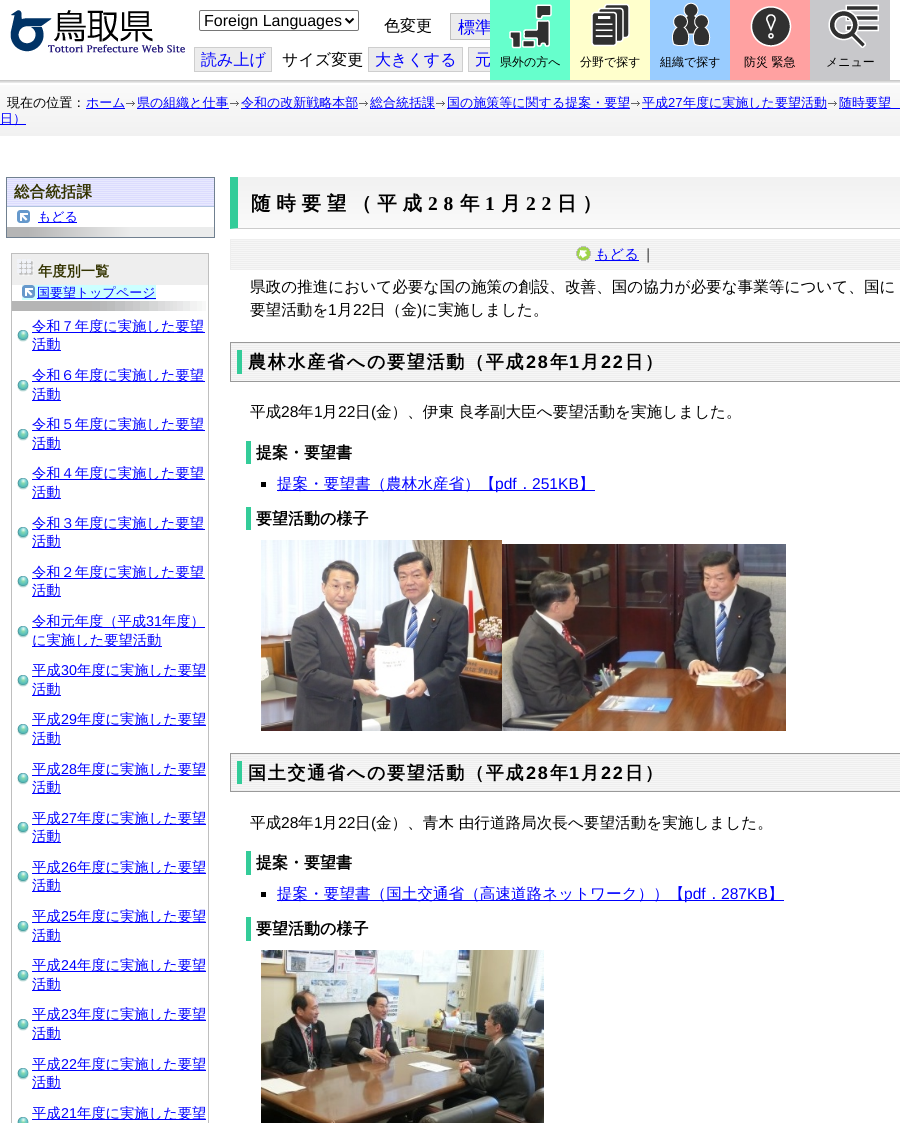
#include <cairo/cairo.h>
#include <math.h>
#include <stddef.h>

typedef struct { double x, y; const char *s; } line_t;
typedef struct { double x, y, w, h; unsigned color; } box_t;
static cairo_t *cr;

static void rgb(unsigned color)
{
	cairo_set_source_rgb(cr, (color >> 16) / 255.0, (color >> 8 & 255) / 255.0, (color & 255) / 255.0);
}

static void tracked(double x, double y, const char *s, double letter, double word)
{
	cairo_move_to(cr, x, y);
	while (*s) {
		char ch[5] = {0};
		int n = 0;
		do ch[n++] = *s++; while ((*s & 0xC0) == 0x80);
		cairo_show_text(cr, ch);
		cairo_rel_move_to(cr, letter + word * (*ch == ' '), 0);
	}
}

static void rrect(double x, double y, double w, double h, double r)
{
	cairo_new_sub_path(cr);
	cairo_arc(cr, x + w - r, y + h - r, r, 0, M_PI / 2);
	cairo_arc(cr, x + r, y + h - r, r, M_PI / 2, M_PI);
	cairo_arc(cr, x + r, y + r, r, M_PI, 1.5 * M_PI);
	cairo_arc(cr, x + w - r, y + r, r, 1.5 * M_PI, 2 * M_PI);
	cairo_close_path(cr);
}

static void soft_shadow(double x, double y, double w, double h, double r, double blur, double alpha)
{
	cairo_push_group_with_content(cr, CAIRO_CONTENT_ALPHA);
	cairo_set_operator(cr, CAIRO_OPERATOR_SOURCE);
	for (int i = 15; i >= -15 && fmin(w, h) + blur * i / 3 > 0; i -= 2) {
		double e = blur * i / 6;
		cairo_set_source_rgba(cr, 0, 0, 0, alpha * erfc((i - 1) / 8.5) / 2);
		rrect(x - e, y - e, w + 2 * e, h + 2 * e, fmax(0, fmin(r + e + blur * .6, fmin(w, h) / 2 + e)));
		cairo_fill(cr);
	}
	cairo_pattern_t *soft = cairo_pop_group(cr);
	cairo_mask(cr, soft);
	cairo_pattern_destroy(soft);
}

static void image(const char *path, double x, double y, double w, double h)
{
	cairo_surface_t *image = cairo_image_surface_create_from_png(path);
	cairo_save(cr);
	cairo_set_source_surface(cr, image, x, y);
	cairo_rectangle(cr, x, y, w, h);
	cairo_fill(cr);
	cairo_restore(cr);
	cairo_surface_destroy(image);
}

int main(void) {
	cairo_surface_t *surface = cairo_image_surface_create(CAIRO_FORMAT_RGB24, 900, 1123);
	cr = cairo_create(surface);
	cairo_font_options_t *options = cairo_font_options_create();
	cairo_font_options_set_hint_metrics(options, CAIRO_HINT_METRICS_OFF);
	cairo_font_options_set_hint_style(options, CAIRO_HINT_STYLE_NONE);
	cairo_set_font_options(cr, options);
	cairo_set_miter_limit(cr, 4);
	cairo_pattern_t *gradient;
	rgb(0xffffff);
	cairo_paint(cr);
	gradient = cairo_pattern_create_linear(500, 85, 500, 136);
	cairo_pattern_add_color_stop_rgba(gradient, 0, 0.98, 0.98, 0.98, 1);
	cairo_pattern_add_color_stop_rgba(gradient, 1, 0.945, 0.945, 0.945, 1);
	cairo_set_source(cr, gradient);
	cairo_pattern_destroy(gradient);
	cairo_rectangle(cr, 0, 85, 900, 51);
	cairo_fill(cr);
	cairo_save(cr);
	cairo_rectangle(cr, 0, 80, 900, 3);
	cairo_clip(cr);
	rgb(0x000000);
	soft_shadow(-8, 1, 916, 80, 0, 2.5, 0.1);
	soft_shadow(-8, 1, 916, 80, 0, 2.5, 0.1);
	soft_shadow(-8, 1, 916, 80, 0, 2.5, 0.1);
	soft_shadow(-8, 1, 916, 80, 0, 2.5, 0.1);
	cairo_restore(cr);
	image("img/1.png", 10, 10, 175, 43);
	rrect(199.5, 10.5, 159, 20, 1.5);
	rgb(0x767676);
	cairo_set_line_width(cr, 1);
	cairo_stroke(cr);
	cairo_new_path(cr);
	cairo_move_to(cr, 345.5, 18.5);
	cairo_line_to(cr, 349.5, 22.5);
	cairo_line_to(cr, 353.5, 18.5);
	rgb(0x000000);
	cairo_set_line_width(cr, 2);
	cairo_stroke(cr);
	rgb(0xececec);
	cairo_rectangle(cr, 451, 14, 39, 25);
	cairo_fill(cr);
	cairo_rectangle(cr, 450.5, 13.5, 49, 26);
	rgb(0xbfbfbf);
	cairo_set_line_width(cr, 1);
	cairo_stroke(cr);
	rgb(0xececec);
	cairo_rectangle(cr, 194.5, 47.5, 77, 24);
	cairo_fill_preserve(cr);
	rgb(0xcecece);
	cairo_stroke(cr);
	{
		static const box_t items[] = {
			{369, 48, 93, 23, 0xececec},
			{368, 47, 95, 1, 0xcecece},
			{368, 71, 23, 1, 0xcecece},
			{368, 47, 1, 25, 0xcecece},
			{462, 47, 1, 25, 0xcecece},
			{391, 71, 72, 1, 0xcecece},
			{469, 48, 21, 23, 0xececec},
			{468, 47, 23, 1, 0xcecece},
			{468, 71, 23, 1, 0xcecece},
			{468, 47, 1, 25, 0xcecece},
			{570, 0, 80, 80, 0xffffcc},
		};
		for (size_t i = 0; i < sizeof items / sizeof *items; i++) {
			rgb(items[i].color);
			cairo_rectangle(cr, items[i].x, items[i].y, items[i].w, items[i].h);
			cairo_fill(cr);
		}
	}
	image("img/3.png", 591, 3, 39, 44);
	rgb(0x99ccff);
	cairo_rectangle(cr, 650, 0, 80, 80);
	cairo_fill(cr);
	image("img/4.png", 672, 2, 39, 44);
	rgb(0xffa1a1);
	cairo_rectangle(cr, 730, 0, 80, 80);
	cairo_fill(cr);
	image("img/5.png", 750, 6, 42, 41);
	rgb(0xc8c8cb);
	cairo_rectangle(cr, 810, 0, 80, 80);
	cairo_fill(cr);
	image("img/6.png", 828, 4, 51, 44);
	rgb(0x0000ff);
	cairo_rectangle(cr, 86, 108, 39, 1);
	cairo_fill(cr);
	image("img/7.png", 126, 101, 9, 5);
	cairo_rectangle(cr, 137, 108, 92, 1);
	cairo_fill(cr);
	image("img/7.png", 230, 101, 9, 5);
	cairo_rectangle(cr, 241, 108, 117, 1);
	cairo_fill(cr);
	image("img/7.png", 359, 101, 9, 5);
	cairo_rectangle(cr, 370, 108, 65, 1);
	cairo_fill(cr);
	image("img/7.png", 436, 101, 9, 5);
	cairo_rectangle(cr, 447, 108, 183, 1);
	cairo_fill(cr);
	image("img/7.png", 631, 101, 9, 5);
	cairo_rectangle(cr, 642, 108, 185, 1);
	cairo_fill(cr);
	image("img/7.png", 828, 101, 9, 5);
	cairo_rectangle(cr, 839, 108, 61, 1);
	cairo_fill(cr);
	cairo_rectangle(cr, 0, 124, 26, 1);
	cairo_fill(cr);
	cairo_rectangle(cr, 6.5, 177.5, 208, 60);
	rgb(0x708090);
	cairo_stroke(cr);
	image("img/8.png", 7, 178, 207, 28);
	rgb(0xb0c4de);
	cairo_rectangle(cr, 7, 206, 207, 1);
	cairo_fill(cr);
	image("img/9.png", 17, 210, 13, 13);
	rgb(0x0000ff);
	cairo_rectangle(cr, 38, 222, 39, 1);
	cairo_fill(cr);
	gradient = cairo_pattern_create_linear(7, 232, 214, 232);
	cairo_pattern_add_color_stop_rgba(gradient, 0, 0.71, 0.71, 0.71, 1);
	cairo_pattern_add_color_stop_rgba(gradient, 0.1, 0.71, 0.71, 0.71, 1);
	cairo_pattern_add_color_stop_rgba(gradient, 0.6, 0.922, 0.925, 0.925, 1);
	cairo_pattern_add_color_stop_rgba(gradient, 1, 0.922, 0.925, 0.925, 1);
	cairo_set_source(cr, gradient);
	cairo_pattern_destroy(gradient);
	cairo_rectangle(cr, 7, 227, 207, 10);
	cairo_fill(cr);
	cairo_rectangle(cr, 11.5, 253.5, 197, 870);
	rgb(0xbfbfbf);
	cairo_stroke(cr);
	rgb(0xeeeeee);
	cairo_rectangle(cr, 12, 254, 196, 31);
	cairo_fill(cr);
	image("img/10.png", 17, 259, 17, 17);
	rgb(0xccffff);
	cairo_rectangle(cr, 22, 285, 134, 15);
	cairo_fill(cr);
	image("img/11.png", 22, 285, 13, 13);
	rgb(0x0000ff);
	cairo_rectangle(cr, 37, 298, 119, 1);
	cairo_fill(cr);
	image("img/12.png", 12, 301, 194, 10);
	image("img/13.png", 17, 330, 12, 12);
	cairo_rectangle(cr, 32, 332, 173, 1);
	cairo_fill(cr);
	cairo_rectangle(cr, 32, 350, 29, 1);
	cairo_fill(cr);
	image("img/13.png", 17, 380, 12, 12);
	cairo_rectangle(cr, 32, 381, 173, 1);
	cairo_fill(cr);
	cairo_rectangle(cr, 32, 400, 29, 1);
	cairo_fill(cr);
	image("img/13.png", 17, 429, 12, 12);
	cairo_rectangle(cr, 32, 430, 173, 1);
	cairo_fill(cr);
	cairo_rectangle(cr, 32, 449, 29, 1);
	cairo_fill(cr);
	image("img/13.png", 17, 478, 12, 12);
	cairo_rectangle(cr, 32, 479, 173, 1);
	cairo_fill(cr);
	cairo_rectangle(cr, 32, 498, 29, 1);
	cairo_fill(cr);
	image("img/13.png", 17, 527, 12, 12);
	cairo_rectangle(cr, 32, 529, 173, 1);
	cairo_fill(cr);
	cairo_rectangle(cr, 32, 547, 29, 1);
	cairo_fill(cr);
	image("img/13.png", 17, 576, 12, 12);
	cairo_rectangle(cr, 32, 578, 173, 1);
	cairo_fill(cr);
	cairo_rectangle(cr, 32, 596, 29, 1);
	cairo_fill(cr);
	image("img/13.png", 17, 626, 12, 12);
	cairo_rectangle(cr, 32, 627, 173, 1);
	cairo_fill(cr);
	cairo_rectangle(cr, 32, 646, 130, 1);
	cairo_fill(cr);
	image("img/13.png", 17, 675, 12, 12);
	cairo_rectangle(cr, 32, 676, 174, 1);
	cairo_fill(cr);
	cairo_rectangle(cr, 32, 695, 29, 1);
	cairo_fill(cr);
	image("img/13.png", 17, 724, 12, 12);
	cairo_rectangle(cr, 32, 725, 174, 1);
	cairo_fill(cr);
	cairo_rectangle(cr, 32, 744, 29, 1);
	cairo_fill(cr);
	image("img/13.png", 17, 773, 12, 12);
	cairo_rectangle(cr, 32, 775, 174, 1);
	cairo_fill(cr);
	cairo_rectangle(cr, 32, 793, 29, 1);
	cairo_fill(cr);
	image("img/13.png", 17, 822, 12, 12);
	cairo_rectangle(cr, 32, 824, 174, 1);
	cairo_fill(cr);
	cairo_rectangle(cr, 32, 842, 29, 1);
	cairo_fill(cr);
	image("img/13.png", 17, 871, 12, 12);
	cairo_rectangle(cr, 32, 873, 174, 1);
	cairo_fill(cr);
	cairo_rectangle(cr, 32, 891, 29, 1);
	cairo_fill(cr);
	image("img/13.png", 17, 921, 12, 12);
	cairo_rectangle(cr, 32, 922, 174, 1);
	cairo_fill(cr);
	cairo_rectangle(cr, 32, 941, 29, 1);
	cairo_fill(cr);
	image("img/13.png", 17, 970, 12, 12);
	cairo_rectangle(cr, 32, 971, 174, 1);
	cairo_fill(cr);
	cairo_rectangle(cr, 32, 990, 29, 1);
	cairo_fill(cr);
	image("img/13.png", 17, 1019, 12, 12);
	cairo_rectangle(cr, 32, 1020, 174, 1);
	cairo_fill(cr);
	cairo_rectangle(cr, 32, 1039, 29, 1);
	cairo_fill(cr);
	image("img/13.png", 17, 1068, 12, 12);
	cairo_rectangle(cr, 32, 1070, 174, 1);
	cairo_fill(cr);
	cairo_rectangle(cr, 32, 1088, 29, 1);
	cairo_fill(cr);
	image("img/14.png", 17, 1117, 12, 6);
	cairo_rectangle(cr, 32, 1119, 174, 1);
	cairo_fill(cr);
	gradient = cairo_pattern_create_linear(619, 177, 619, 228);
	cairo_pattern_add_color_stop_rgba(gradient, 0, 0.945, 0.945, 0.945, 1);
	cairo_pattern_add_color_stop_rgba(gradient, 1, 0.98, 0.98, 0.98, 1);
	cairo_set_source(cr, gradient);
	cairo_pattern_destroy(gradient);
	cairo_rectangle(cr, 238, 177, 662, 51);
	cairo_fill(cr);
	rgb(0xcccccc);
	cairo_new_path(cr);
	cairo_move_to(cr, 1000, 229);
	cairo_line_to(cr, 230, 229);
	cairo_line_to(cr, 238, 228);
	cairo_line_to(cr, 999, 228);
	cairo_close_path(cr);
	cairo_fill(cr);
	rgb(0x33cc99);
	cairo_new_path(cr);
	cairo_move_to(cr, 230, 229);
	cairo_line_to(cr, 230, 177);
	cairo_line_to(cr, 238, 177);
	cairo_line_to(cr, 238, 228);
	cairo_close_path(cr);
	cairo_fill(cr);
	image("img/15.png", 231, 240, 669, 29);
	cairo_rectangle(cr, 230.5, 239.5, 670, 30);
	rgb(0xeeeeee);
	cairo_stroke(cr);
	image("img/16.png", 576, 246, 15, 15);
	rgb(0x0000ff);
	cairo_rectangle(cr, 595, 260, 44, 1);
	cairo_fill(cr);
	image("img/17.png", 231, 343, 669, 38);
	cairo_rectangle(cr, 230.5, 342.5, 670, 39);
	rgb(0x999999);
	cairo_stroke(cr);
	{
		static const box_t items[] = {
			{237, 350, 5, 24, 0x33cc99},
			{246, 441, 5, 23, 0x33cc99},
			{261, 482, 5, 5, 0x000000},
			{277, 490, 318, 1, 0x0000ff},
			{246, 507, 5, 23, 0x33cc99},
		};
		for (size_t i = 0; i < sizeof items / sizeof *items; i++) {
			rgb(items[i].color);
			cairo_rectangle(cr, items[i].x, items[i].y, items[i].w, items[i].h);
			cairo_fill(cr);
		}
	}
	image("img/18.png", 261, 540, 241, 191);
	image("img/19.png", 502, 544, 284, 187);
	image("img/20.png", 231, 754, 669, 37);
	cairo_rectangle(cr, 230.5, 753.5, 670, 38);
	rgb(0x999999);
	cairo_stroke(cr);
	{
		static const box_t items[] = {
			{237, 761, 5, 23, 0x33cc99},
			{246, 851, 5, 24, 0x33cc99},
			{261, 892, 5, 5, 0x000000},
			{277, 900, 507, 1, 0x0000ff},
			{246, 917, 5, 24, 0x33cc99},
		};
		for (size_t i = 0; i < sizeof items / sizeof *items; i++) {
			rgb(items[i].color);
			cairo_rectangle(cr, items[i].x, items[i].y, items[i].w, items[i].h);
			cairo_fill(cr);
		}
	}
	image("img/21.png", 261, 950, 283, 173);
	cairo_select_font_face(cr, "Liberation Sans", CAIRO_FONT_SLANT_NORMAL, CAIRO_FONT_WEIGHT_NORMAL);
	cairo_set_font_size(cr, 16);
	rgb(0x000000);
	cairo_move_to(cr, 204, 26);
	cairo_show_text(cr, "Foreign Languages");
	cairo_select_font_face(cr, "WenQuanYi Zen Hei Medium", CAIRO_FONT_SLANT_NORMAL, CAIRO_FONT_WEIGHT_NORMAL);
	cairo_move_to(cr, 384, 31);
	cairo_show_text(cr, "色変更");
	cairo_set_font_size(cr, 17);
	rgb(0x0000ff);
	cairo_move_to(cr, 458, 33);
	cairo_show_text(cr, "標準");
	cairo_set_font_size(cr, 16);
	cairo_move_to(cr, 201, 65);
	cairo_show_text(cr, "読み上げ");
	rgb(0x000000);
	cairo_move_to(cr, 282, 65);
	cairo_show_text(cr, "サイズ変更");
	rgb(0x0000ff);
	cairo_move_to(cr, 375, 65);
	cairo_show_text(cr, "大きくする");
	cairo_move_to(cr, 475, 65);
	cairo_show_text(cr, "元");
	rgb(0x66ffcc);
	cairo_rectangle(cr, 490, 0, 80, 80);
	cairo_fill(cr);
	image("img/2.png", 509, 4, 43, 45);
	cairo_set_font_size(cr, 12);
	rgb(0x000000);
	{
		static const line_t items[] = {
			{500, 66, "県外の方へ"},
			{580, 66, "分野で探す"},
			{660, 66, "組織で探す"},
			{744, 66, "防災 緊急"},
			{826, 66, "メニュー"},
		};
		for (size_t i = 0; i < sizeof items / sizeof *items; i++) {
			cairo_move_to(cr, items[i].x, items[i].y);
			cairo_show_text(cr, items[i].s);
		}
	}
	cairo_set_font_size(cr, 13);
	cairo_move_to(cr, 7, 107);
	cairo_show_text(cr, "現在の位置：");
	rgb(0x0000ff);
	{
		static const line_t items[] = {
			{86, 107, "ホーム"},
			{137, 107, "県の組織と仕事"},
			{241, 107, "令和の改新戦略本部"},
			{370, 107, "総合統括課"},
			{447, 107, "国の施策等に関する提案・要望"},
			{642, 107, "平成"},
		};
		for (size_t i = 0; i < sizeof items / sizeof *items; i++) {
			cairo_move_to(cr, items[i].x, items[i].y);
			cairo_show_text(cr, items[i].s);
		}
	}
	cairo_select_font_face(cr, "Liberation Sans", CAIRO_FONT_SLANT_NORMAL, CAIRO_FONT_WEIGHT_NORMAL);
	cairo_move_to(cr, 668, 107);
	cairo_show_text(cr, "27");
	cairo_select_font_face(cr, "WenQuanYi Zen Hei Medium", CAIRO_FONT_SLANT_NORMAL, CAIRO_FONT_WEIGHT_NORMAL);
	{
		static const line_t items[] = {
			{683, 107, "年度に実施した要望活動"},
			{839, 107, "随時要望"},
			{0, 123, "日）"},
		};
		for (size_t i = 0; i < sizeof items / sizeof *items; i++) {
			cairo_move_to(cr, items[i].x, items[i].y);
			cairo_show_text(cr, items[i].s);
		}
	}
	cairo_select_font_face(cr, "WenQuanYi Zen Hei", CAIRO_FONT_SLANT_NORMAL, CAIRO_FONT_WEIGHT_BOLD);
	cairo_set_font_size(cr, 15.6);
	rgb(0x333300);
	cairo_move_to(cr, 14, 197);
	cairo_show_text(cr, "総合統括課");
	cairo_select_font_face(cr, "WenQuanYi Zen Hei Medium", CAIRO_FONT_SLANT_NORMAL, CAIRO_FONT_WEIGHT_NORMAL);
	cairo_set_font_size(cr, 13);
	rgb(0x0000ff);
	cairo_move_to(cr, 38, 221);
	cairo_show_text(cr, "もどる");
	cairo_select_font_face(cr, "WenQuanYi Zen Hei", CAIRO_FONT_SLANT_NORMAL, CAIRO_FONT_WEIGHT_BOLD);
	cairo_set_font_size(cr, 14.25);
	rgb(0x333300);
	cairo_move_to(cr, 38, 276);
	cairo_show_text(cr, "年度別一覧");
	cairo_select_font_face(cr, "WenQuanYi Zen Hei Medium", CAIRO_FONT_SLANT_NORMAL, CAIRO_FONT_WEIGHT_NORMAL);
	cairo_set_font_size(cr, 13);
	rgb(0x0000ff);
	cairo_move_to(cr, 37, 297);
	cairo_show_text(cr, "国要望トップページ");
	cairo_set_font_size(cr, 14.25);
	{
		static const line_t items[] = {
			{32, 331, "令和７年度に実施した要望"},
			{32, 349, "活動"},
			{32, 380, "令和６年度に実施した要望"},
			{32, 399, "活動"},
			{32, 429, "令和５年度に実施した要望"},
			{32, 448, "活動"},
			{32, 478, "令和４年度に実施した要望"},
			{32, 497, "活動"},
			{32, 528, "令和３年度に実施した要望"},
			{32, 546, "活動"},
			{32, 577, "令和２年度に実施した要望"},
			{32, 595, "活動"},
			{32, 626, "令和元年度（平成"},
		};
		for (size_t i = 0; i < sizeof items / sizeof *items; i++) {
			cairo_move_to(cr, items[i].x, items[i].y);
			cairo_show_text(cr, items[i].s);
		}
	}
	cairo_select_font_face(cr, "Liberation Sans", CAIRO_FONT_SLANT_NORMAL, CAIRO_FONT_WEIGHT_NORMAL);
	cairo_move_to(cr, 146, 626);
	cairo_show_text(cr, "31");
	cairo_select_font_face(cr, "WenQuanYi Zen Hei Medium", CAIRO_FONT_SLANT_NORMAL, CAIRO_FONT_WEIGHT_NORMAL);
	{
		static const line_t items[] = {
			{162, 626, "年度）"},
			{32, 645, "に実施した要望活動"},
			{32, 675, "平成"},
		};
		for (size_t i = 0; i < sizeof items / sizeof *items; i++) {
			cairo_move_to(cr, items[i].x, items[i].y);
			cairo_show_text(cr, items[i].s);
		}
	}
	cairo_select_font_face(cr, "Liberation Sans", CAIRO_FONT_SLANT_NORMAL, CAIRO_FONT_WEIGHT_NORMAL);
	cairo_move_to(cr, 61, 675);
	cairo_show_text(cr, "30");
	cairo_select_font_face(cr, "WenQuanYi Zen Hei Medium", CAIRO_FONT_SLANT_NORMAL, CAIRO_FONT_WEIGHT_NORMAL);
	{
		static const line_t items[] = {
			{77, 675, "年度に実施した要望"},
			{32, 694, "活動"},
			{32, 724, "平成"},
		};
		for (size_t i = 0; i < sizeof items / sizeof *items; i++) {
			cairo_move_to(cr, items[i].x, items[i].y);
			cairo_show_text(cr, items[i].s);
		}
	}
	cairo_select_font_face(cr, "Liberation Sans", CAIRO_FONT_SLANT_NORMAL, CAIRO_FONT_WEIGHT_NORMAL);
	cairo_move_to(cr, 61, 724);
	cairo_show_text(cr, "29");
	cairo_select_font_face(cr, "WenQuanYi Zen Hei Medium", CAIRO_FONT_SLANT_NORMAL, CAIRO_FONT_WEIGHT_NORMAL);
	{
		static const line_t items[] = {
			{77, 724, "年度に実施した要望"},
			{32, 743, "活動"},
			{32, 774, "平成"},
		};
		for (size_t i = 0; i < sizeof items / sizeof *items; i++) {
			cairo_move_to(cr, items[i].x, items[i].y);
			cairo_show_text(cr, items[i].s);
		}
	}
	cairo_select_font_face(cr, "Liberation Sans", CAIRO_FONT_SLANT_NORMAL, CAIRO_FONT_WEIGHT_NORMAL);
	cairo_move_to(cr, 61, 774);
	cairo_show_text(cr, "28");
	cairo_select_font_face(cr, "WenQuanYi Zen Hei Medium", CAIRO_FONT_SLANT_NORMAL, CAIRO_FONT_WEIGHT_NORMAL);
	{
		static const line_t items[] = {
			{77, 774, "年度に実施した要望"},
			{32, 792, "活動"},
			{32, 823, "平成"},
		};
		for (size_t i = 0; i < sizeof items / sizeof *items; i++) {
			cairo_move_to(cr, items[i].x, items[i].y);
			cairo_show_text(cr, items[i].s);
		}
	}
	cairo_select_font_face(cr, "Liberation Sans", CAIRO_FONT_SLANT_NORMAL, CAIRO_FONT_WEIGHT_NORMAL);
	cairo_move_to(cr, 61, 823);
	cairo_show_text(cr, "27");
	cairo_select_font_face(cr, "WenQuanYi Zen Hei Medium", CAIRO_FONT_SLANT_NORMAL, CAIRO_FONT_WEIGHT_NORMAL);
	{
		static const line_t items[] = {
			{77, 823, "年度に実施した要望"},
			{32, 841, "活動"},
			{32, 872, "平成"},
		};
		for (size_t i = 0; i < sizeof items / sizeof *items; i++) {
			cairo_move_to(cr, items[i].x, items[i].y);
			cairo_show_text(cr, items[i].s);
		}
	}
	cairo_select_font_face(cr, "Liberation Sans", CAIRO_FONT_SLANT_NORMAL, CAIRO_FONT_WEIGHT_NORMAL);
	cairo_move_to(cr, 61, 872);
	cairo_show_text(cr, "26");
	cairo_select_font_face(cr, "WenQuanYi Zen Hei Medium", CAIRO_FONT_SLANT_NORMAL, CAIRO_FONT_WEIGHT_NORMAL);
	{
		static const line_t items[] = {
			{77, 872, "年度に実施した要望"},
			{32, 890, "活動"},
			{32, 921, "平成"},
		};
		for (size_t i = 0; i < sizeof items / sizeof *items; i++) {
			cairo_move_to(cr, items[i].x, items[i].y);
			cairo_show_text(cr, items[i].s);
		}
	}
	cairo_select_font_face(cr, "Liberation Sans", CAIRO_FONT_SLANT_NORMAL, CAIRO_FONT_WEIGHT_NORMAL);
	cairo_move_to(cr, 61, 921);
	cairo_show_text(cr, "25");
	cairo_select_font_face(cr, "WenQuanYi Zen Hei Medium", CAIRO_FONT_SLANT_NORMAL, CAIRO_FONT_WEIGHT_NORMAL);
	{
		static const line_t items[] = {
			{77, 921, "年度に実施した要望"},
			{32, 940, "活動"},
			{32, 970, "平成"},
		};
		for (size_t i = 0; i < sizeof items / sizeof *items; i++) {
			cairo_move_to(cr, items[i].x, items[i].y);
			cairo_show_text(cr, items[i].s);
		}
	}
	cairo_select_font_face(cr, "Liberation Sans", CAIRO_FONT_SLANT_NORMAL, CAIRO_FONT_WEIGHT_NORMAL);
	cairo_move_to(cr, 61, 970);
	cairo_show_text(cr, "24");
	cairo_select_font_face(cr, "WenQuanYi Zen Hei Medium", CAIRO_FONT_SLANT_NORMAL, CAIRO_FONT_WEIGHT_NORMAL);
	{
		static const line_t items[] = {
			{77, 970, "年度に実施した要望"},
			{32, 989, "活動"},
			{32, 1019, "平成"},
		};
		for (size_t i = 0; i < sizeof items / sizeof *items; i++) {
			cairo_move_to(cr, items[i].x, items[i].y);
			cairo_show_text(cr, items[i].s);
		}
	}
	cairo_select_font_face(cr, "Liberation Sans", CAIRO_FONT_SLANT_NORMAL, CAIRO_FONT_WEIGHT_NORMAL);
	cairo_move_to(cr, 61, 1019);
	cairo_show_text(cr, "23");
	cairo_select_font_face(cr, "WenQuanYi Zen Hei Medium", CAIRO_FONT_SLANT_NORMAL, CAIRO_FONT_WEIGHT_NORMAL);
	{
		static const line_t items[] = {
			{77, 1019, "年度に実施した要望"},
			{32, 1038, "活動"},
			{32, 1069, "平成"},
		};
		for (size_t i = 0; i < sizeof items / sizeof *items; i++) {
			cairo_move_to(cr, items[i].x, items[i].y);
			cairo_show_text(cr, items[i].s);
		}
	}
	cairo_select_font_face(cr, "Liberation Sans", CAIRO_FONT_SLANT_NORMAL, CAIRO_FONT_WEIGHT_NORMAL);
	cairo_move_to(cr, 61, 1069);
	cairo_show_text(cr, "22");
	cairo_select_font_face(cr, "WenQuanYi Zen Hei Medium", CAIRO_FONT_SLANT_NORMAL, CAIRO_FONT_WEIGHT_NORMAL);
	{
		static const line_t items[] = {
			{77, 1069, "年度に実施した要望"},
			{32, 1087, "活動"},
			{32, 1118, "平成"},
		};
		for (size_t i = 0; i < sizeof items / sizeof *items; i++) {
			cairo_move_to(cr, items[i].x, items[i].y);
			cairo_show_text(cr, items[i].s);
		}
	}
	cairo_select_font_face(cr, "Liberation Sans", CAIRO_FONT_SLANT_NORMAL, CAIRO_FONT_WEIGHT_NORMAL);
	cairo_move_to(cr, 61, 1118);
	cairo_show_text(cr, "21");
	cairo_select_font_face(cr, "WenQuanYi Zen Hei Medium", CAIRO_FONT_SLANT_NORMAL, CAIRO_FONT_WEIGHT_NORMAL);
	cairo_move_to(cr, 77, 1118);
	cairo_show_text(cr, "年度に実施した要望");
	cairo_select_font_face(cr, "WenQuanYi Zen Hei", CAIRO_FONT_SLANT_NORMAL, CAIRO_FONT_WEIGHT_BOLD);
	cairo_set_font_size(cr, 19.5);
	rgb(0x000000);
	tracked(251, 210, "随時要望（平成", 5.75, 0);
	cairo_select_font_face(cr, "Liberation Serif", CAIRO_FONT_SLANT_NORMAL, CAIRO_FONT_WEIGHT_BOLD);
	tracked(428, 210, "28", 5.75, 0);
	cairo_select_font_face(cr, "WenQuanYi Zen Hei", CAIRO_FONT_SLANT_NORMAL, CAIRO_FONT_WEIGHT_BOLD);
	tracked(460, 210, "年", 5.75, 0);
	cairo_select_font_face(cr, "Liberation Serif", CAIRO_FONT_SLANT_NORMAL, CAIRO_FONT_WEIGHT_BOLD);
	tracked(485, 210, "1", 5.75, 0);
	cairo_select_font_face(cr, "WenQuanYi Zen Hei", CAIRO_FONT_SLANT_NORMAL, CAIRO_FONT_WEIGHT_BOLD);
	tracked(501, 210, "月", 5.75, 0);
	cairo_select_font_face(cr, "Liberation Serif", CAIRO_FONT_SLANT_NORMAL, CAIRO_FONT_WEIGHT_BOLD);
	tracked(526, 210, "22", 5.75, 0);
	cairo_select_font_face(cr, "WenQuanYi Zen Hei", CAIRO_FONT_SLANT_NORMAL, CAIRO_FONT_WEIGHT_BOLD);
	tracked(557, 210, "日）", 5.75, 0);
	cairo_select_font_face(cr, "WenQuanYi Zen Hei Medium", CAIRO_FONT_SLANT_NORMAL, CAIRO_FONT_WEIGHT_NORMAL);
	cairo_set_font_size(cr, 14.25);
	rgb(0x0000ff);
	cairo_move_to(cr, 595, 259);
	cairo_show_text(cr, "もどる");
	rgb(0x000000);
	cairo_move_to(cr, 641, 259);
	cairo_show_text(cr, "｜");
	cairo_set_font_size(cr, 15.6);
	cairo_move_to(cr, 250, 292);
	cairo_show_text(cr, "県政の推進において必要な国の施策の創設、改善、国の協力が必要な事業等について、国に");
	cairo_move_to(cr, 250, 315);
	cairo_show_text(cr, "要望活動を");
	cairo_select_font_face(cr, "Liberation Sans", CAIRO_FONT_SLANT_NORMAL, CAIRO_FONT_WEIGHT_NORMAL);
	cairo_move_to(cr, 328, 315);
	cairo_show_text(cr, "1");
	cairo_select_font_face(cr, "WenQuanYi Zen Hei Medium", CAIRO_FONT_SLANT_NORMAL, CAIRO_FONT_WEIGHT_NORMAL);
	cairo_move_to(cr, 337, 315);
	cairo_show_text(cr, "月");
	cairo_select_font_face(cr, "Liberation Sans", CAIRO_FONT_SLANT_NORMAL, CAIRO_FONT_WEIGHT_NORMAL);
	cairo_move_to(cr, 353, 315);
	cairo_show_text(cr, "22");
	cairo_select_font_face(cr, "WenQuanYi Zen Hei Medium", CAIRO_FONT_SLANT_NORMAL, CAIRO_FONT_WEIGHT_NORMAL);
	cairo_move_to(cr, 370, 315);
	cairo_show_text(cr, "日（金");
	cairo_select_font_face(cr, "Liberation Sans", CAIRO_FONT_SLANT_NORMAL, CAIRO_FONT_WEIGHT_NORMAL);
	cairo_move_to(cr, 417, 315);
	cairo_show_text(cr, ")");
	cairo_select_font_face(cr, "WenQuanYi Zen Hei Medium", CAIRO_FONT_SLANT_NORMAL, CAIRO_FONT_WEIGHT_NORMAL);
	cairo_move_to(cr, 422, 315);
	cairo_show_text(cr, "に実施しました。");
	cairo_select_font_face(cr, "WenQuanYi Zen Hei", CAIRO_FONT_SLANT_NORMAL, CAIRO_FONT_WEIGHT_BOLD);
	cairo_set_font_size(cr, 18);
	tracked(248, 368, "農林水産省への要望活動（平成", 1.75, 0);
	cairo_select_font_face(cr, "Liberation Sans", CAIRO_FONT_SLANT_NORMAL, CAIRO_FONT_WEIGHT_BOLD);
	tracked(526, 368, "28", 1.75, 0);
	cairo_select_font_face(cr, "WenQuanYi Zen Hei", CAIRO_FONT_SLANT_NORMAL, CAIRO_FONT_WEIGHT_BOLD);
	tracked(550, 368, "年", 1.75, 0);
	cairo_select_font_face(cr, "Liberation Sans", CAIRO_FONT_SLANT_NORMAL, CAIRO_FONT_WEIGHT_BOLD);
	tracked(569, 368, "1", 1.75, 0);
	cairo_select_font_face(cr, "WenQuanYi Zen Hei", CAIRO_FONT_SLANT_NORMAL, CAIRO_FONT_WEIGHT_BOLD);
	tracked(581, 368, "月", 1.75, 0);
	cairo_select_font_face(cr, "Liberation Sans", CAIRO_FONT_SLANT_NORMAL, CAIRO_FONT_WEIGHT_BOLD);
	tracked(601, 368, "22", 1.75, 0);
	cairo_select_font_face(cr, "WenQuanYi Zen Hei", CAIRO_FONT_SLANT_NORMAL, CAIRO_FONT_WEIGHT_BOLD);
	tracked(625, 368, "日）", 1.75, 0);
	cairo_select_font_face(cr, "WenQuanYi Zen Hei Medium", CAIRO_FONT_SLANT_NORMAL, CAIRO_FONT_WEIGHT_NORMAL);
	cairo_set_font_size(cr, 15.6);
	cairo_move_to(cr, 250, 417);
	cairo_show_text(cr, "平成");
	cairo_select_font_face(cr, "Liberation Sans", CAIRO_FONT_SLANT_NORMAL, CAIRO_FONT_WEIGHT_NORMAL);
	cairo_move_to(cr, 281, 417);
	cairo_show_text(cr, "28");
	cairo_select_font_face(cr, "WenQuanYi Zen Hei Medium", CAIRO_FONT_SLANT_NORMAL, CAIRO_FONT_WEIGHT_NORMAL);
	cairo_move_to(cr, 298, 417);
	cairo_show_text(cr, "年");
	cairo_select_font_face(cr, "Liberation Sans", CAIRO_FONT_SLANT_NORMAL, CAIRO_FONT_WEIGHT_NORMAL);
	cairo_move_to(cr, 314, 417);
	cairo_show_text(cr, "1");
	cairo_select_font_face(cr, "WenQuanYi Zen Hei Medium", CAIRO_FONT_SLANT_NORMAL, CAIRO_FONT_WEIGHT_NORMAL);
	cairo_move_to(cr, 322, 417);
	cairo_show_text(cr, "月");
	cairo_select_font_face(cr, "Liberation Sans", CAIRO_FONT_SLANT_NORMAL, CAIRO_FONT_WEIGHT_NORMAL);
	cairo_move_to(cr, 338, 417);
	cairo_show_text(cr, "22");
	cairo_select_font_face(cr, "WenQuanYi Zen Hei Medium", CAIRO_FONT_SLANT_NORMAL, CAIRO_FONT_WEIGHT_NORMAL);
	cairo_move_to(cr, 355, 417);
	cairo_show_text(cr, "日");
	cairo_select_font_face(cr, "Liberation Sans", CAIRO_FONT_SLANT_NORMAL, CAIRO_FONT_WEIGHT_NORMAL);
	cairo_move_to(cr, 371, 417);
	cairo_show_text(cr, "(");
	cairo_select_font_face(cr, "WenQuanYi Zen Hei Medium", CAIRO_FONT_SLANT_NORMAL, CAIRO_FONT_WEIGHT_NORMAL);
	cairo_move_to(cr, 376, 417);
	cairo_show_text(cr, "金）、伊東 良孝副大臣へ要望活動を実施しました。");
	cairo_select_font_face(cr, "WenQuanYi Zen Hei", CAIRO_FONT_SLANT_NORMAL, CAIRO_FONT_WEIGHT_BOLD);
	cairo_set_font_size(cr, 16);
	cairo_move_to(cr, 256, 458);
	cairo_show_text(cr, "提案・要望書");
	cairo_select_font_face(cr, "WenQuanYi Zen Hei Medium", CAIRO_FONT_SLANT_NORMAL, CAIRO_FONT_WEIGHT_NORMAL);
	cairo_set_font_size(cr, 15.6);
	rgb(0x0000ff);
	cairo_move_to(cr, 277, 489);
	cairo_show_text(cr, "提案・要望書（農林水産省）【");
	cairo_select_font_face(cr, "Liberation Sans", CAIRO_FONT_SLANT_NORMAL, CAIRO_FONT_WEIGHT_NORMAL);
	cairo_move_to(cr, 495, 489);
	cairo_show_text(cr, "pdf");
	cairo_move_to(cr, 532, 489);
	cairo_show_text(cr, "251KB");
	cairo_select_font_face(cr, "WenQuanYi Zen Hei Medium", CAIRO_FONT_SLANT_NORMAL, CAIRO_FONT_WEIGHT_NORMAL);
	cairo_move_to(cr, 579, 489);
	cairo_show_text(cr, "】");
	cairo_move_to(cr, 517, 489);
	cairo_show_text(cr, "．");
	cairo_select_font_face(cr, "WenQuanYi Zen Hei", CAIRO_FONT_SLANT_NORMAL, CAIRO_FONT_WEIGHT_BOLD);
	cairo_set_font_size(cr, 16);
	rgb(0x000000);
	cairo_move_to(cr, 256, 524);
	cairo_show_text(cr, "要望活動の様子");
	cairo_set_font_size(cr, 18);
	tracked(248, 779, "国土交通省への要望活動（平成", 1.75, 0);
	cairo_select_font_face(cr, "Liberation Sans", CAIRO_FONT_SLANT_NORMAL, CAIRO_FONT_WEIGHT_BOLD);
	tracked(526, 779, "28", 1.75, 0);
	cairo_select_font_face(cr, "WenQuanYi Zen Hei", CAIRO_FONT_SLANT_NORMAL, CAIRO_FONT_WEIGHT_BOLD);
	tracked(550, 779, "年", 1.75, 0);
	cairo_select_font_face(cr, "Liberation Sans", CAIRO_FONT_SLANT_NORMAL, CAIRO_FONT_WEIGHT_BOLD);
	tracked(569, 779, "1", 1.75, 0);
	cairo_select_font_face(cr, "WenQuanYi Zen Hei", CAIRO_FONT_SLANT_NORMAL, CAIRO_FONT_WEIGHT_BOLD);
	tracked(581, 779, "月", 1.75, 0);
	cairo_select_font_face(cr, "Liberation Sans", CAIRO_FONT_SLANT_NORMAL, CAIRO_FONT_WEIGHT_BOLD);
	tracked(601, 779, "22", 1.75, 0);
	cairo_select_font_face(cr, "WenQuanYi Zen Hei", CAIRO_FONT_SLANT_NORMAL, CAIRO_FONT_WEIGHT_BOLD);
	tracked(625, 779, "日）", 1.75, 0);
	cairo_select_font_face(cr, "WenQuanYi Zen Hei Medium", CAIRO_FONT_SLANT_NORMAL, CAIRO_FONT_WEIGHT_NORMAL);
	cairo_set_font_size(cr, 15.6);
	cairo_move_to(cr, 250, 828);
	cairo_show_text(cr, "平成");
	cairo_select_font_face(cr, "Liberation Sans", CAIRO_FONT_SLANT_NORMAL, CAIRO_FONT_WEIGHT_NORMAL);
	cairo_move_to(cr, 281, 828);
	cairo_show_text(cr, "28");
	cairo_select_font_face(cr, "WenQuanYi Zen Hei Medium", CAIRO_FONT_SLANT_NORMAL, CAIRO_FONT_WEIGHT_NORMAL);
	cairo_move_to(cr, 298, 828);
	cairo_show_text(cr, "年");
	cairo_select_font_face(cr, "Liberation Sans", CAIRO_FONT_SLANT_NORMAL, CAIRO_FONT_WEIGHT_NORMAL);
	cairo_move_to(cr, 314, 828);
	cairo_show_text(cr, "1");
	cairo_select_font_face(cr, "WenQuanYi Zen Hei Medium", CAIRO_FONT_SLANT_NORMAL, CAIRO_FONT_WEIGHT_NORMAL);
	cairo_move_to(cr, 322, 828);
	cairo_show_text(cr, "月");
	cairo_select_font_face(cr, "Liberation Sans", CAIRO_FONT_SLANT_NORMAL, CAIRO_FONT_WEIGHT_NORMAL);
	cairo_move_to(cr, 338, 828);
	cairo_show_text(cr, "22");
	cairo_select_font_face(cr, "WenQuanYi Zen Hei Medium", CAIRO_FONT_SLANT_NORMAL, CAIRO_FONT_WEIGHT_NORMAL);
	cairo_move_to(cr, 355, 828);
	cairo_show_text(cr, "日");
	cairo_select_font_face(cr, "Liberation Sans", CAIRO_FONT_SLANT_NORMAL, CAIRO_FONT_WEIGHT_NORMAL);
	cairo_move_to(cr, 371, 828);
	cairo_show_text(cr, "(");
	cairo_select_font_face(cr, "WenQuanYi Zen Hei Medium", CAIRO_FONT_SLANT_NORMAL, CAIRO_FONT_WEIGHT_NORMAL);
	cairo_move_to(cr, 376, 828);
	cairo_show_text(cr, "金）、青木 由行道路局次長へ要望活動を実施しました。");
	cairo_select_font_face(cr, "WenQuanYi Zen Hei", CAIRO_FONT_SLANT_NORMAL, CAIRO_FONT_WEIGHT_BOLD);
	cairo_set_font_size(cr, 16);
	cairo_move_to(cr, 256, 868);
	cairo_show_text(cr, "提案・要望書");
	cairo_select_font_face(cr, "WenQuanYi Zen Hei Medium", CAIRO_FONT_SLANT_NORMAL, CAIRO_FONT_WEIGHT_NORMAL);
	cairo_set_font_size(cr, 15.6);
	rgb(0x0000ff);
	cairo_move_to(cr, 277, 899);
	cairo_show_text(cr, "提案・要望書（国土交通省（高速道路ネットワーク））【");
	cairo_select_font_face(cr, "Liberation Sans", CAIRO_FONT_SLANT_NORMAL, CAIRO_FONT_WEIGHT_NORMAL);
	cairo_move_to(cr, 684, 899);
	cairo_show_text(cr, "pdf");
	cairo_move_to(cr, 721, 899);
	cairo_show_text(cr, "287KB");
	cairo_select_font_face(cr, "WenQuanYi Zen Hei Medium", CAIRO_FONT_SLANT_NORMAL, CAIRO_FONT_WEIGHT_NORMAL);
	cairo_move_to(cr, 768, 899);
	cairo_show_text(cr, "】");
	cairo_move_to(cr, 706, 899);
	cairo_show_text(cr, "．");
	cairo_select_font_face(cr, "WenQuanYi Zen Hei", CAIRO_FONT_SLANT_NORMAL, CAIRO_FONT_WEIGHT_BOLD);
	cairo_set_font_size(cr, 16);
	rgb(0x000000);
	cairo_move_to(cr, 256, 934);
	cairo_show_text(cr, "要望活動の様子");
	cairo_surface_write_to_png(surface, "page.png");
	cairo_font_options_destroy(options);
	cairo_destroy(cr);
	cairo_surface_destroy(surface);
	return 0;
}
